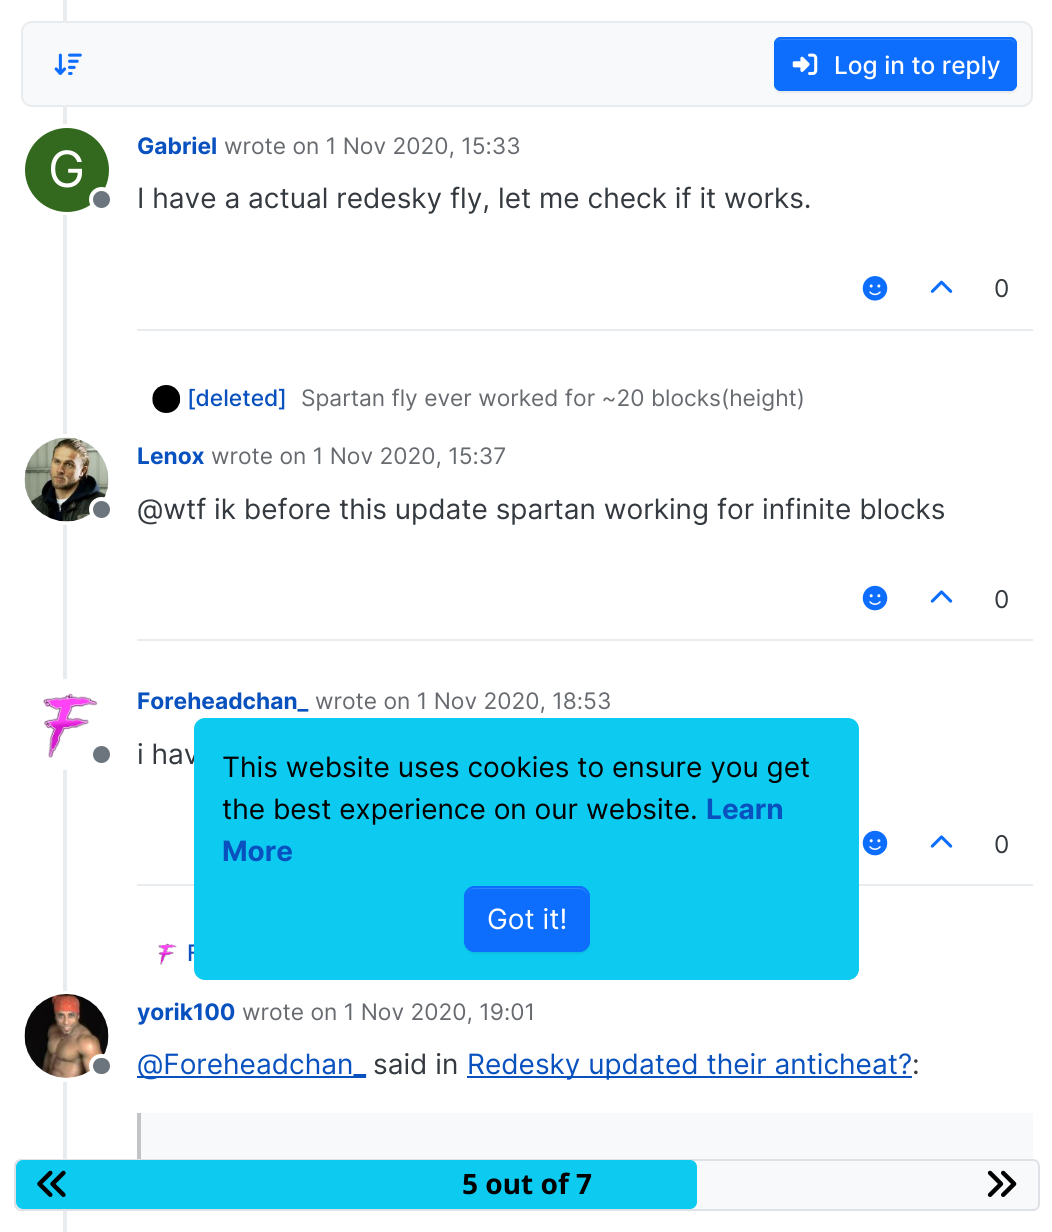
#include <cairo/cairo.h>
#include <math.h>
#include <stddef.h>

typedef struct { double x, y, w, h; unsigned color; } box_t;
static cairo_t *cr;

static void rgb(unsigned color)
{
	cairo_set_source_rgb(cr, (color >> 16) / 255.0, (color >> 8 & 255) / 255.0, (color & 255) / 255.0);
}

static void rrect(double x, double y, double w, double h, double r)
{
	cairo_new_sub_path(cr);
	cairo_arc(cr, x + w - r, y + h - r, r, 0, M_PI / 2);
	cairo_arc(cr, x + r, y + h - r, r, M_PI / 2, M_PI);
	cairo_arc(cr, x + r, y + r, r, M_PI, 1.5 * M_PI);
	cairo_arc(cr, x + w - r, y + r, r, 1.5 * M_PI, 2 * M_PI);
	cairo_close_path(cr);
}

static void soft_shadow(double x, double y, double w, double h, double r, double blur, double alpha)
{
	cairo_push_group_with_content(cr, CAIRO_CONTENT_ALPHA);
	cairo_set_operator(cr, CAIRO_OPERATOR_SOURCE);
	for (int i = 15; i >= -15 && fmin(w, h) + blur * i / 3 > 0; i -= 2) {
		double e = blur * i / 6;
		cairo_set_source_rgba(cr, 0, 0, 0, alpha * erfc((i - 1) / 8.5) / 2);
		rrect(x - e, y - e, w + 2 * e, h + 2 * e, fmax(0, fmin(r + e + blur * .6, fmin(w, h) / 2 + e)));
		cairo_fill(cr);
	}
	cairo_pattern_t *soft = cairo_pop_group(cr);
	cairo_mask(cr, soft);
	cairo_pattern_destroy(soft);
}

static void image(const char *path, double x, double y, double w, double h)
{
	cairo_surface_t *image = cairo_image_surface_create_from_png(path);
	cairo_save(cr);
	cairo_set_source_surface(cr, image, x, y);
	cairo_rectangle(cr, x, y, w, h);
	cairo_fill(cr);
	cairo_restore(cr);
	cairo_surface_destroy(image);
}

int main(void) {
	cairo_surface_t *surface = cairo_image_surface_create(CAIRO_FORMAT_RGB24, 1052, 1232);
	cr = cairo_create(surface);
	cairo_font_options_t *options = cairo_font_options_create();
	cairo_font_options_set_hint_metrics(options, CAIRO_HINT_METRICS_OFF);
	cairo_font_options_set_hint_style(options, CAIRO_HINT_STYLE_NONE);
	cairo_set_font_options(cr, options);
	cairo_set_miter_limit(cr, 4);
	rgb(0xffffff);
	cairo_paint(cr);
	rgb(0xf8f9fa);
	rrect(22, 22, 1010, 84, 10);
	cairo_fill_preserve(cr);
	rgb(0xe9ecef);
	cairo_stroke(cr);
	image("img/1.png", 54, 53, 28, 22);
	rgb(0x000000);
	soft_shadow(774, 39, 243, 54, 7, 1, 0.07);
	rgb(0x0d6efd);
	rrect(774, 37, 243, 54, 7);
	cairo_fill(cr);
	rgb(0x3184fd);
	cairo_new_path(cr);
	cairo_move_to(cr, 780, 40);
	cairo_line_to(cr, 1010, 40);
	cairo_curve_to(cr, 1013, 40, 1015, 43, 1015, 46);
	cairo_curve_to(cr, 1015, 43, 1015, 40, 1011, 39);
	cairo_line_to(cr, 779, 39);
	cairo_curve_to(cr, 775, 40, 775, 43, 775, 46);
	cairo_curve_to(cr, 775, 43, 778, 40, 780, 40);
	cairo_close_path(cr);
	cairo_fill(cr);
	rrect(775, 38, 241, 52, 6);
	rgb(0x0d6efd);
	cairo_stroke(cr);
	image("img/2.png", 792, 53, 26, 22);
	rgb(0xe9ecef);
	cairo_rectangle(cr, 63, 0, 4, 21);
	cairo_fill(cr);
	cairo_rectangle(cr, 63, 107, 4, 1125);
	cairo_fill(cr);
	cairo_arc(cr, 66.5, 169.5, 43.5, 0, 2 * M_PI);
	rgb(0xffffff);
	cairo_set_line_width(cr, 4);
	cairo_stroke(cr);
	rgb(0x33691e);
	cairo_arc(cr, 67, 170, 42, 0, 2 * M_PI);
	cairo_fill(cr);
	rgb(0x6c757d);
	cairo_arc(cr, 101.5, 199.5, 10.5, 0, 2 * M_PI);
	cairo_fill_preserve(cr);
	rgb(0xffffff);
	cairo_stroke(cr);
	rgb(0xe9ecef);
	cairo_rectangle(cr, 137, 329, 896, 2);
	cairo_fill(cr);
	image("img/3.png", 862, 276, 26, 25);
	image("img/4.png", 930, 280, 23, 13);
	image("img/5.png", 152, 385, 29, 28);
	cairo_arc(cr, 66.5, 479.5, 43.5, 0, 2 * M_PI);
	rgb(0xffffff);
	cairo_stroke(cr);
	image("img/6.png", 24, 437, 85, 85);
	rgb(0x6c757d);
	cairo_arc(cr, 101.5, 509.5, 10.5, 0, 2 * M_PI);
	cairo_fill_preserve(cr);
	rgb(0xffffff);
	cairo_stroke(cr);
	rgb(0xe9ecef);
	cairo_rectangle(cr, 137, 639, 896, 2);
	cairo_fill(cr);
	image("img/7.png", 862, 585, 26, 26);
	image("img/8.png", 930, 590, 23, 13);
	rgb(0xffffff);
	cairo_arc(cr, 66.5, 724.5, 43.5, 0, 2 * M_PI);
	cairo_fill_preserve(cr);
	cairo_stroke(cr);
	image("img/9.png", 43, 693, 55, 65);
	rgb(0x6c757d);
	cairo_arc(cr, 101.5, 754.5, 10.5, 0, 2 * M_PI);
	cairo_fill_preserve(cr);
	rgb(0xffffff);
	cairo_stroke(cr);
	rgb(0xe9ecef);
	cairo_rectangle(cr, 137, 884, 896, 2);
	cairo_fill(cr);
	image("img/7.png", 862, 830, 26, 26);
	image("img/8.png", 930, 835, 23, 13);
	image("img/10.png", 158, 943, 19, 22);
	cairo_arc(cr, 66.5, 1036.5, 43.5, 0, 2 * M_PI);
	rgb(0xffffff);
	cairo_stroke(cr);
	image("img/11.png", 24, 994, 85, 84);
	rgb(0x6c757d);
	rrect(91, 1056, 21, 20, 10);
	cairo_fill_preserve(cr);
	rgb(0xffffff);
	cairo_stroke(cr);
	{
		static const box_t items[] = {
			{137, 1076, 229, 2, 0x0951be},
			{467, 1076, 445, 2, 0x0951be},
			{141, 1113, 892, 46, 0xf8f9fa},
			{137, 1113, 4, 46, 0xc2c4c6},
		};
		for (size_t i = 0; i < sizeof items / sizeof *items; i++) {
			rgb(items[i].color);
			cairo_rectangle(cr, items[i].x, items[i].y, items[i].w, items[i].h);
			cairo_fill(cr);
		}
	}
	rgb(0xf8f9fa);
	rrect(15, 1160, 1024, 50, 6);
	cairo_fill_preserve(cr);
	rgb(0xdee2e6);
	cairo_set_line_width(cr, 2);
	cairo_stroke(cr);
	rgb(0x0dcaf0);
	rrect(16, 1160, 681, 49, 7);
	cairo_fill(cr);
	image("img/12.png", 37, 1170, 29, 27);
	image("img/13.png", 987, 1170, 30, 27);
	cairo_select_font_face(cr, "Inter Medium", CAIRO_FONT_SLANT_NORMAL, CAIRO_FONT_WEIGHT_NORMAL);
	cairo_set_font_size(cr, 24.5);
	rgb(0xffffff);
	cairo_move_to(cr, 834, 74);
	cairo_show_text(cr, "Log in to reply");
	cairo_select_font_face(cr, "Inter", CAIRO_FONT_SLANT_NORMAL, CAIRO_FONT_WEIGHT_NORMAL);
	cairo_set_font_size(cr, 50);
	cairo_move_to(cr, 48, 187);
	cairo_show_text(cr, "G");
	cairo_select_font_face(cr, "Inter", CAIRO_FONT_SLANT_NORMAL, CAIRO_FONT_WEIGHT_BOLD);
	cairo_set_font_size(cr, 22.75);
	rgb(0x0951be);
	cairo_move_to(cr, 137, 154);
	cairo_show_text(cr, "Gabriel");
	cairo_select_font_face(cr, "Inter", CAIRO_FONT_SLANT_NORMAL, CAIRO_FONT_WEIGHT_NORMAL);
	rgb(0x676b70);
	cairo_move_to(cr, 224, 154);
	cairo_show_text(cr, "wrote on 1 Nov 2020, 15:33");
	cairo_set_font_size(cr, 28);
	rgb(0x343a40);
	cairo_move_to(cr, 137, 208);
	cairo_show_text(cr, "I have a actual redesky fly, let me check if it works.");
	cairo_set_font_size(cr, 24.5);
	cairo_move_to(cr, 994, 297);
	cairo_show_text(cr, "0");
	cairo_select_font_face(cr, "Inter Medium", CAIRO_FONT_SLANT_NORMAL, CAIRO_FONT_WEIGHT_NORMAL);
	cairo_set_font_size(cr, 22.75);
	rgb(0x0951be);
	cairo_move_to(cr, 187, 406);
	cairo_show_text(cr, "[deleted]");
	cairo_select_font_face(cr, "Inter", CAIRO_FONT_SLANT_NORMAL, CAIRO_FONT_WEIGHT_NORMAL);
	rgb(0x676b70);
	cairo_move_to(cr, 301, 406);
	cairo_show_text(cr, "Spartan fly ever worked for ~20 blocks(height)");
	cairo_select_font_face(cr, "Inter", CAIRO_FONT_SLANT_NORMAL, CAIRO_FONT_WEIGHT_BOLD);
	rgb(0x0951be);
	cairo_move_to(cr, 137, 464);
	cairo_show_text(cr, "Lenox");
	cairo_select_font_face(cr, "Inter", CAIRO_FONT_SLANT_NORMAL, CAIRO_FONT_WEIGHT_NORMAL);
	rgb(0x676b70);
	cairo_move_to(cr, 211, 464);
	cairo_show_text(cr, "wrote on 1 Nov 2020, 15:37");
	cairo_set_font_size(cr, 28);
	rgb(0x343a40);
	cairo_move_to(cr, 137, 519);
	cairo_show_text(cr, "@wtf ik before this update spartan working for infinite blocks");
	cairo_set_font_size(cr, 24.5);
	cairo_move_to(cr, 994, 608);
	cairo_show_text(cr, "0");
	cairo_select_font_face(cr, "Inter", CAIRO_FONT_SLANT_NORMAL, CAIRO_FONT_WEIGHT_BOLD);
	cairo_set_font_size(cr, 22.75);
	rgb(0x0951be);
	cairo_move_to(cr, 137, 709);
	cairo_show_text(cr, "Foreheadchan_");
	cairo_select_font_face(cr, "Inter", CAIRO_FONT_SLANT_NORMAL, CAIRO_FONT_WEIGHT_NORMAL);
	rgb(0x676b70);
	cairo_move_to(cr, 315, 709);
	cairo_show_text(cr, "wrote on 1 Nov 2020, 18:53");
	cairo_set_font_size(cr, 28);
	rgb(0x343a40);
	cairo_move_to(cr, 137, 764);
	cairo_show_text(cr, "i hav");
	cairo_set_font_size(cr, 24.5);
	cairo_move_to(cr, 994, 853);
	cairo_show_text(cr, "0");
	cairo_select_font_face(cr, "Inter Medium", CAIRO_FONT_SLANT_NORMAL, CAIRO_FONT_WEIGHT_NORMAL);
	cairo_set_font_size(cr, 22.75);
	rgb(0x0951be);
	cairo_move_to(cr, 187, 961);
	cairo_show_text(cr, "F");
	cairo_select_font_face(cr, "Inter", CAIRO_FONT_SLANT_NORMAL, CAIRO_FONT_WEIGHT_BOLD);
	cairo_move_to(cr, 137, 1020);
	cairo_show_text(cr, "yorik100");
	cairo_select_font_face(cr, "Inter", CAIRO_FONT_SLANT_NORMAL, CAIRO_FONT_WEIGHT_NORMAL);
	rgb(0x676b70);
	cairo_move_to(cr, 242, 1020);
	cairo_show_text(cr, "wrote on 1 Nov 2020, 19:01");
	cairo_set_font_size(cr, 28);
	rgb(0x0951be);
	cairo_move_to(cr, 137, 1074);
	cairo_show_text(cr, "@Foreheadchan_");
	rgb(0x343a40);
	cairo_move_to(cr, 373, 1074);
	cairo_show_text(cr, "said in");
	rgb(0x0951be);
	cairo_move_to(cr, 467, 1074);
	cairo_show_text(cr, "Redesky updated their anticheat?");
	rgb(0x343a40);
	cairo_move_to(cr, 912, 1074);
	cairo_show_text(cr, ":");
	rgb(0x0dcaf0);
	rrect(194, 718, 665, 262, 11);
	cairo_fill(cr);
	rgb(0x000000);
	cairo_move_to(cr, 222, 777);
	cairo_show_text(cr, "This website uses cookies to ensure you get");
	cairo_move_to(cr, 222, 819);
	cairo_show_text(cr, "the best experience on our website.");
	cairo_select_font_face(cr, "Inter", CAIRO_FONT_SLANT_NORMAL, CAIRO_FONT_WEIGHT_BOLD);
	rgb(0x0951be);
	cairo_move_to(cr, 706, 819);
	cairo_show_text(cr, "Learn");
	cairo_move_to(cr, 222, 861);
	cairo_show_text(cr, "More");
	rgb(0x000000);
	soft_shadow(464, 887, 126, 67, 11, 1, 0.07);
	rgb(0x0d6efd);
	rrect(464, 886, 126, 66, 11);
	cairo_fill(cr);
	rgb(0x3184fd);
	cairo_new_path(cr);
	cairo_move_to(cr, 474, 889);
	cairo_line_to(cr, 579, 889);
	cairo_curve_to(cr, 584, 889, 588, 893, 588, 898);
	cairo_curve_to(cr, 588, 883, 573, 887, 562, 887);
	cairo_line_to(cr, 492, 887);
	cairo_curve_to(cr, 481, 887, 466, 883, 466, 898);
	cairo_curve_to(cr, 466, 893, 469, 889, 474, 889);
	cairo_close_path(cr);
	cairo_fill(cr);
	rrect(465, 887, 124, 64, 10);
	rgb(0x0d6efd);
	cairo_stroke(cr);
	cairo_select_font_face(cr, "Inter", CAIRO_FONT_SLANT_NORMAL, CAIRO_FONT_WEIGHT_NORMAL);
	rgb(0xffffff);
	cairo_move_to(cr, 487, 929);
	cairo_show_text(cr, "Got it!");
	cairo_select_font_face(cr, "Noto Sans", CAIRO_FONT_SLANT_NORMAL, CAIRO_FONT_WEIGHT_BOLD);
	rgb(0x000000);
	cairo_move_to(cr, 462, 1194);
	cairo_show_text(cr, "5 out of 7");
	cairo_surface_write_to_png(surface, "page.png");
	cairo_font_options_destroy(options);
	cairo_destroy(cr);
	cairo_surface_destroy(surface);
	return 0;
}
